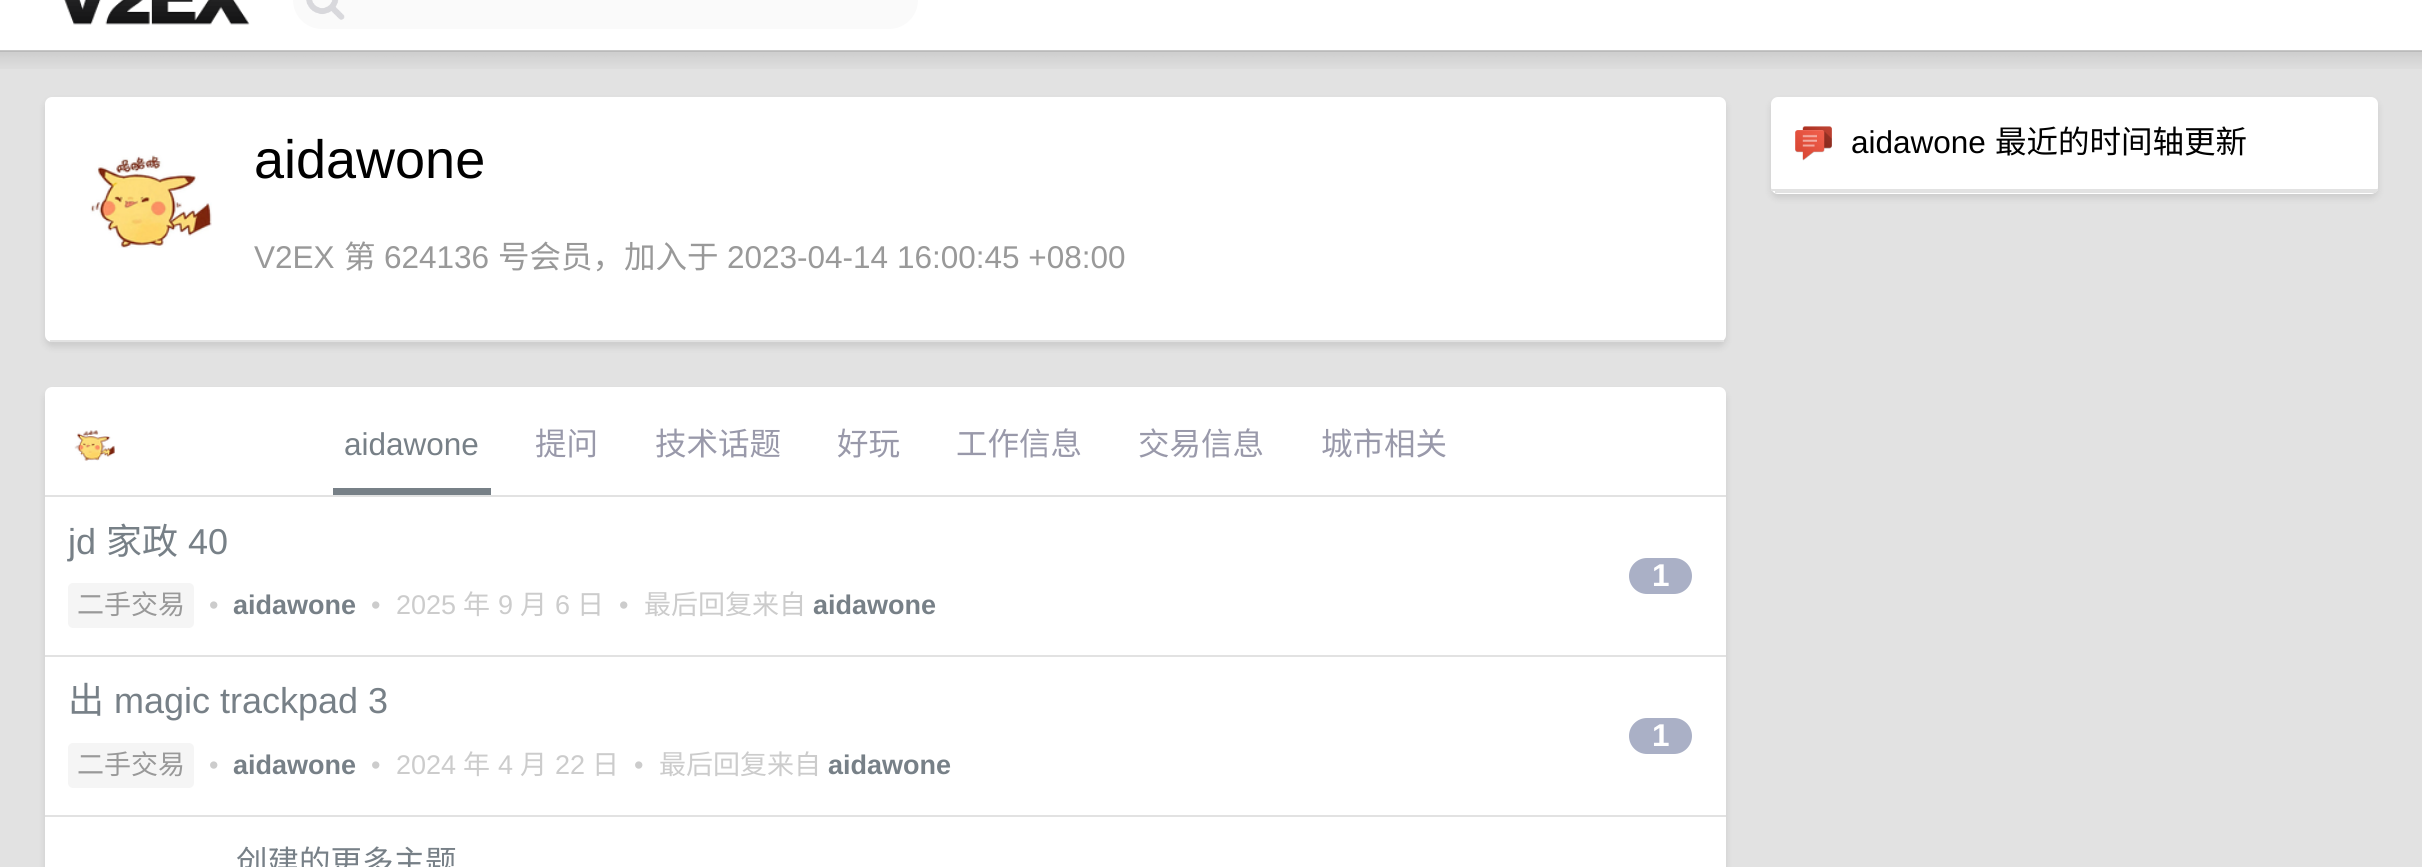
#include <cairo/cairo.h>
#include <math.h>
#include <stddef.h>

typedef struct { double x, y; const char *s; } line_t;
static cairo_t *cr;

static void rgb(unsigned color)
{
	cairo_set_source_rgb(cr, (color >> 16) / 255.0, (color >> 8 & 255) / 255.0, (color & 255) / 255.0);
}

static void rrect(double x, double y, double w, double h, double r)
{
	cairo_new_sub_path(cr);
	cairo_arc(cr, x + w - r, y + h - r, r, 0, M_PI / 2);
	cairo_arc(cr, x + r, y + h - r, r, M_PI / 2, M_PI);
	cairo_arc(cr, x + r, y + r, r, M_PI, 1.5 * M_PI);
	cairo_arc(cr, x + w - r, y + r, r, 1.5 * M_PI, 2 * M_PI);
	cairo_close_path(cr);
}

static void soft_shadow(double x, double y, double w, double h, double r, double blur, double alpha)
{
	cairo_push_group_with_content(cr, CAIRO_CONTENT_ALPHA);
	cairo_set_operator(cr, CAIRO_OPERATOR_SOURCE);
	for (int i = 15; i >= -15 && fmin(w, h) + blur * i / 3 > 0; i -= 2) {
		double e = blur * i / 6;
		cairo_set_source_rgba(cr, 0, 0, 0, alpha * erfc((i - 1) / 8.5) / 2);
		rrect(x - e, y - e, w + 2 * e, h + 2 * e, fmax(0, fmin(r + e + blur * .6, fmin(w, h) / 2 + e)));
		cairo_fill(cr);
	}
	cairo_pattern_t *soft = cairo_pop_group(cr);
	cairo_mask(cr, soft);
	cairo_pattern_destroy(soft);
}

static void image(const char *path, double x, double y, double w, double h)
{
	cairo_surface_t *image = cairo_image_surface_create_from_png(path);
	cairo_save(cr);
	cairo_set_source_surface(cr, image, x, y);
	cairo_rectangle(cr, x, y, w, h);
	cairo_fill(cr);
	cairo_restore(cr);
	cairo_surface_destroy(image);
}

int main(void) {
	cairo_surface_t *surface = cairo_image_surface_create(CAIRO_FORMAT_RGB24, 2422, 867);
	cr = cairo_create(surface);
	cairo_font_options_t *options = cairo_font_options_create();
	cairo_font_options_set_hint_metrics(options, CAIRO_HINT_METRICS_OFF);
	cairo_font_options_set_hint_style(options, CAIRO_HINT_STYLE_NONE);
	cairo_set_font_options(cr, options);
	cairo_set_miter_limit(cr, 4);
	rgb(0xffffff);
	cairo_paint(cr);
	rgb(0xc7c7c7);
	cairo_rectangle(cr, 0, 50, 2422, 2);
	cairo_fill(cr);
	image("img/1.png", 64, 0, 186, 25);
	rgb(0xfafafa);
	rrect(293, -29, 625, 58, 29);
	cairo_fill(cr);
	image("img/2.png", 306, 0, 39, 20);
	rgb(0xe2e2e2);
	cairo_rectangle(cr, 0, 52, 2422, 815);
	cairo_fill(cr);
	image("img/3.png", 0, 51, 2422, 18);
	rgb(0x000000);
	soft_shadow(45, 101, 1681, 246, 7, 3.5, 0.1);
	rgb(0xffffff);
	rrect(45, 97, 1681, 245, 7);
	cairo_fill(cr);
	rgb(0xe2e2e2);
	cairo_rectangle(cr, 50, 340, 1674, 2);
	cairo_fill(cr);
	image("img/4.png", 90, 155, 122, 93);
	rgb(0x000000);
	soft_shadow(45, 392, 1681, 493, 7, 3.5, 0.1);
	rgb(0xffffff);
	rrect(45, 387, 1681, 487, 7);
	cairo_fill(cr);
	rgb(0xe2e2e2);
	cairo_rectangle(cr, 45, 495, 1681, 2);
	cairo_fill(cr);
	image("img/5.png", 74, 430, 41, 31);
	rgb(0x778087);
	cairo_rectangle(cr, 333, 488, 158, 7);
	cairo_fill(cr);
	rgb(0xe2e2e2);
	cairo_rectangle(cr, 45, 655, 1681, 2);
	cairo_fill(cr);
	rgb(0xf5f5f5);
	rrect(68, 583, 126, 45, 5);
	cairo_fill(cr);
	rgb(0xaab0c6);
	rrect(1629, 558, 63, 36, 18);
	cairo_fill(cr);
	rgb(0xe2e2e2);
	cairo_rectangle(cr, 45, 815, 1681, 2);
	cairo_fill(cr);
	rgb(0xf5f5f5);
	rrect(68, 743, 126, 45, 5);
	cairo_fill(cr);
	rgb(0xaab0c6);
	rrect(1629, 718, 63, 36, 18);
	cairo_fill(cr);
	rgb(0x000000);
	soft_shadow(1771, 101, 607, 97, 7, 3.5, 0.1);
	rgb(0xffffff);
	rrect(1771, 97, 607, 97, 7);
	cairo_fill(cr);
	rgb(0xe2e2e2);
	cairo_rectangle(cr, 1775, 191, 601, 2);
	cairo_fill(cr);
	cairo_rectangle(cr, 1771, 189, 607, 2);
	cairo_fill(cr);
	image("img/6.png", 1795, 126, 37, 35);
	cairo_select_font_face(cr, "Liberation Sans", CAIRO_FONT_SLANT_NORMAL, CAIRO_FONT_WEIGHT_NORMAL);
	cairo_set_font_size(cr, 54);
	rgb(0x000000);
	cairo_move_to(cr, 254, 178);
	cairo_show_text(cr, "aidawone");
	cairo_set_font_size(cr, 31.5);
	rgb(0x999999);
	cairo_move_to(cr, 254, 268);
	cairo_show_text(cr, "V2EX");
	cairo_select_font_face(cr, "Noto Sans CJK SC", CAIRO_FONT_SLANT_NORMAL, CAIRO_FONT_WEIGHT_NORMAL);
	cairo_move_to(cr, 344, 268);
	cairo_show_text(cr, "第");
	cairo_select_font_face(cr, "Liberation Sans", CAIRO_FONT_SLANT_NORMAL, CAIRO_FONT_WEIGHT_NORMAL);
	cairo_move_to(cr, 384, 268);
	cairo_show_text(cr, "624136");
	cairo_select_font_face(cr, "Noto Sans CJK SC", CAIRO_FONT_SLANT_NORMAL, CAIRO_FONT_WEIGHT_NORMAL);
	cairo_move_to(cr, 498, 268);
	cairo_show_text(cr, "号会员，加入于");
	cairo_select_font_face(cr, "Liberation Sans", CAIRO_FONT_SLANT_NORMAL, CAIRO_FONT_WEIGHT_NORMAL);
	cairo_move_to(cr, 727, 268);
	cairo_show_text(cr, "2023-04-14 16:00:45 +08:00");
	rgb(0x778087);
	cairo_move_to(cr, 344, 455);
	cairo_show_text(cr, "aidawone");
	cairo_select_font_face(cr, "Noto Sans CJK SC", CAIRO_FONT_SLANT_NORMAL, CAIRO_FONT_WEIGHT_NORMAL);
	rgb(0x9999aa);
	{
		static const line_t items[] = {
			{535, 455, "提问"},
			{655, 455, "技术话题"},
			{837, 455, "好玩"},
			{956, 455, "工作信息"},
			{1138, 455, "交易信息"},
			{1321, 455, "城市相关"},
		};
		for (size_t i = 0; i < sizeof items / sizeof *items; i++) {
			cairo_move_to(cr, items[i].x, items[i].y);
			cairo_show_text(cr, items[i].s);
		}
	}
	cairo_select_font_face(cr, "Liberation Sans", CAIRO_FONT_SLANT_NORMAL, CAIRO_FONT_WEIGHT_NORMAL);
	cairo_set_font_size(cr, 36);
	rgb(0x778087);
	cairo_move_to(cr, 68, 554);
	cairo_show_text(cr, "jd");
	cairo_select_font_face(cr, "Noto Sans CJK SC", CAIRO_FONT_SLANT_NORMAL, CAIRO_FONT_WEIGHT_NORMAL);
	cairo_move_to(cr, 106, 554);
	cairo_show_text(cr, "家政");
	cairo_select_font_face(cr, "Liberation Sans", CAIRO_FONT_SLANT_NORMAL, CAIRO_FONT_WEIGHT_NORMAL);
	cairo_move_to(cr, 188, 554);
	cairo_show_text(cr, "40");
	cairo_select_font_face(cr, "Noto Sans CJK SC", CAIRO_FONT_SLANT_NORMAL, CAIRO_FONT_WEIGHT_NORMAL);
	cairo_set_font_size(cr, 27);
	rgb(0x999999);
	cairo_move_to(cr, 77, 614);
	cairo_show_text(cr, "二手交易");
	cairo_select_font_face(cr, "Liberation Sans", CAIRO_FONT_SLANT_NORMAL, CAIRO_FONT_WEIGHT_NORMAL);
	rgb(0xcccccc);
	cairo_move_to(cr, 209, 614);
	cairo_show_text(cr, "•");
	cairo_select_font_face(cr, "Liberation Sans", CAIRO_FONT_SLANT_NORMAL, CAIRO_FONT_WEIGHT_BOLD);
	rgb(0x778087);
	cairo_move_to(cr, 233, 614);
	cairo_show_text(cr, "aidawone");
	cairo_select_font_face(cr, "Liberation Sans", CAIRO_FONT_SLANT_NORMAL, CAIRO_FONT_WEIGHT_NORMAL);
	rgb(0xcccccc);
	cairo_move_to(cr, 371, 614);
	cairo_show_text(cr, "•");
	cairo_move_to(cr, 396, 614);
	cairo_show_text(cr, "2025");
	cairo_select_font_face(cr, "Noto Sans CJK SC", CAIRO_FONT_SLANT_NORMAL, CAIRO_FONT_WEIGHT_NORMAL);
	cairo_move_to(cr, 463, 614);
	cairo_show_text(cr, "年");
	cairo_select_font_face(cr, "Liberation Sans", CAIRO_FONT_SLANT_NORMAL, CAIRO_FONT_WEIGHT_NORMAL);
	cairo_move_to(cr, 498, 614);
	cairo_show_text(cr, "9");
	cairo_select_font_face(cr, "Noto Sans CJK SC", CAIRO_FONT_SLANT_NORMAL, CAIRO_FONT_WEIGHT_NORMAL);
	cairo_move_to(cr, 520, 614);
	cairo_show_text(cr, "月");
	cairo_select_font_face(cr, "Liberation Sans", CAIRO_FONT_SLANT_NORMAL, CAIRO_FONT_WEIGHT_NORMAL);
	cairo_move_to(cr, 555, 614);
	cairo_show_text(cr, "6");
	cairo_select_font_face(cr, "Noto Sans CJK SC", CAIRO_FONT_SLANT_NORMAL, CAIRO_FONT_WEIGHT_NORMAL);
	cairo_move_to(cr, 577, 614);
	cairo_show_text(cr, "日");
	cairo_select_font_face(cr, "Liberation Sans", CAIRO_FONT_SLANT_NORMAL, CAIRO_FONT_WEIGHT_NORMAL);
	cairo_move_to(cr, 619, 614);
	cairo_show_text(cr, "•");
	cairo_select_font_face(cr, "Noto Sans CJK SC", CAIRO_FONT_SLANT_NORMAL, CAIRO_FONT_WEIGHT_NORMAL);
	cairo_move_to(cr, 644, 614);
	cairo_show_text(cr, "最后回复来自");
	cairo_select_font_face(cr, "Liberation Sans", CAIRO_FONT_SLANT_NORMAL, CAIRO_FONT_WEIGHT_BOLD);
	rgb(0x778087);
	cairo_move_to(cr, 813, 614);
	cairo_show_text(cr, "aidawone");
	cairo_set_font_size(cr, 31.5);
	rgb(0xffffff);
	cairo_move_to(cr, 1652, 586);
	cairo_show_text(cr, "1");
	cairo_select_font_face(cr, "Noto Sans CJK SC", CAIRO_FONT_SLANT_NORMAL, CAIRO_FONT_WEIGHT_NORMAL);
	cairo_set_font_size(cr, 36);
	rgb(0x778087);
	cairo_move_to(cr, 68, 713);
	cairo_show_text(cr, "出");
	cairo_select_font_face(cr, "Liberation Sans", CAIRO_FONT_SLANT_NORMAL, CAIRO_FONT_WEIGHT_NORMAL);
	cairo_move_to(cr, 114, 713);
	cairo_show_text(cr, "magic trackpad 3");
	cairo_select_font_face(cr, "Noto Sans CJK SC", CAIRO_FONT_SLANT_NORMAL, CAIRO_FONT_WEIGHT_NORMAL);
	cairo_set_font_size(cr, 27);
	rgb(0x999999);
	cairo_move_to(cr, 77, 774);
	cairo_show_text(cr, "二手交易");
	cairo_select_font_face(cr, "Liberation Sans", CAIRO_FONT_SLANT_NORMAL, CAIRO_FONT_WEIGHT_NORMAL);
	rgb(0xcccccc);
	cairo_move_to(cr, 209, 774);
	cairo_show_text(cr, "•");
	cairo_select_font_face(cr, "Liberation Sans", CAIRO_FONT_SLANT_NORMAL, CAIRO_FONT_WEIGHT_BOLD);
	rgb(0x778087);
	cairo_move_to(cr, 233, 774);
	cairo_show_text(cr, "aidawone");
	cairo_select_font_face(cr, "Liberation Sans", CAIRO_FONT_SLANT_NORMAL, CAIRO_FONT_WEIGHT_NORMAL);
	rgb(0xcccccc);
	cairo_move_to(cr, 371, 774);
	cairo_show_text(cr, "•");
	cairo_move_to(cr, 396, 774);
	cairo_show_text(cr, "2024");
	cairo_select_font_face(cr, "Noto Sans CJK SC", CAIRO_FONT_SLANT_NORMAL, CAIRO_FONT_WEIGHT_NORMAL);
	cairo_move_to(cr, 463, 774);
	cairo_show_text(cr, "年");
	cairo_select_font_face(cr, "Liberation Sans", CAIRO_FONT_SLANT_NORMAL, CAIRO_FONT_WEIGHT_NORMAL);
	cairo_move_to(cr, 498, 774);
	cairo_show_text(cr, "4");
	cairo_select_font_face(cr, "Noto Sans CJK SC", CAIRO_FONT_SLANT_NORMAL, CAIRO_FONT_WEIGHT_NORMAL);
	cairo_move_to(cr, 520, 774);
	cairo_show_text(cr, "月");
	cairo_select_font_face(cr, "Liberation Sans", CAIRO_FONT_SLANT_NORMAL, CAIRO_FONT_WEIGHT_NORMAL);
	cairo_move_to(cr, 555, 774);
	cairo_show_text(cr, "22");
	cairo_select_font_face(cr, "Noto Sans CJK SC", CAIRO_FONT_SLANT_NORMAL, CAIRO_FONT_WEIGHT_NORMAL);
	cairo_move_to(cr, 592, 774);
	cairo_show_text(cr, "日");
	cairo_select_font_face(cr, "Liberation Sans", CAIRO_FONT_SLANT_NORMAL, CAIRO_FONT_WEIGHT_NORMAL);
	cairo_move_to(cr, 634, 774);
	cairo_show_text(cr, "•");
	cairo_select_font_face(cr, "Noto Sans CJK SC", CAIRO_FONT_SLANT_NORMAL, CAIRO_FONT_WEIGHT_NORMAL);
	cairo_move_to(cr, 659, 774);
	cairo_show_text(cr, "最后回复来自");
	cairo_select_font_face(cr, "Liberation Sans", CAIRO_FONT_SLANT_NORMAL, CAIRO_FONT_WEIGHT_BOLD);
	rgb(0x778087);
	cairo_move_to(cr, 828, 774);
	cairo_show_text(cr, "aidawone");
	cairo_set_font_size(cr, 31.5);
	rgb(0xffffff);
	cairo_move_to(cr, 1652, 746);
	cairo_show_text(cr, "1");
	cairo_select_font_face(cr, "Noto Sans CJK SC", CAIRO_FONT_SLANT_NORMAL, CAIRO_FONT_WEIGHT_NORMAL);
	rgb(0x778087);
	cairo_move_to(cr, 236, 873);
	cairo_show_text(cr, "创建的更多主题");
	cairo_select_font_face(cr, "Liberation Sans", CAIRO_FONT_SLANT_NORMAL, CAIRO_FONT_WEIGHT_NORMAL);
	rgb(0x000000);
	cairo_move_to(cr, 1851, 153);
	cairo_show_text(cr, "aidawone");
	cairo_select_font_face(cr, "Noto Sans CJK SC", CAIRO_FONT_SLANT_NORMAL, CAIRO_FONT_WEIGHT_NORMAL);
	cairo_move_to(cr, 1995, 153);
	cairo_show_text(cr, "最近的时间轴更新");
	cairo_surface_write_to_png(surface, "page.png");
	cairo_font_options_destroy(options);
	cairo_destroy(cr);
	cairo_surface_destroy(surface);
	return 0;
}
